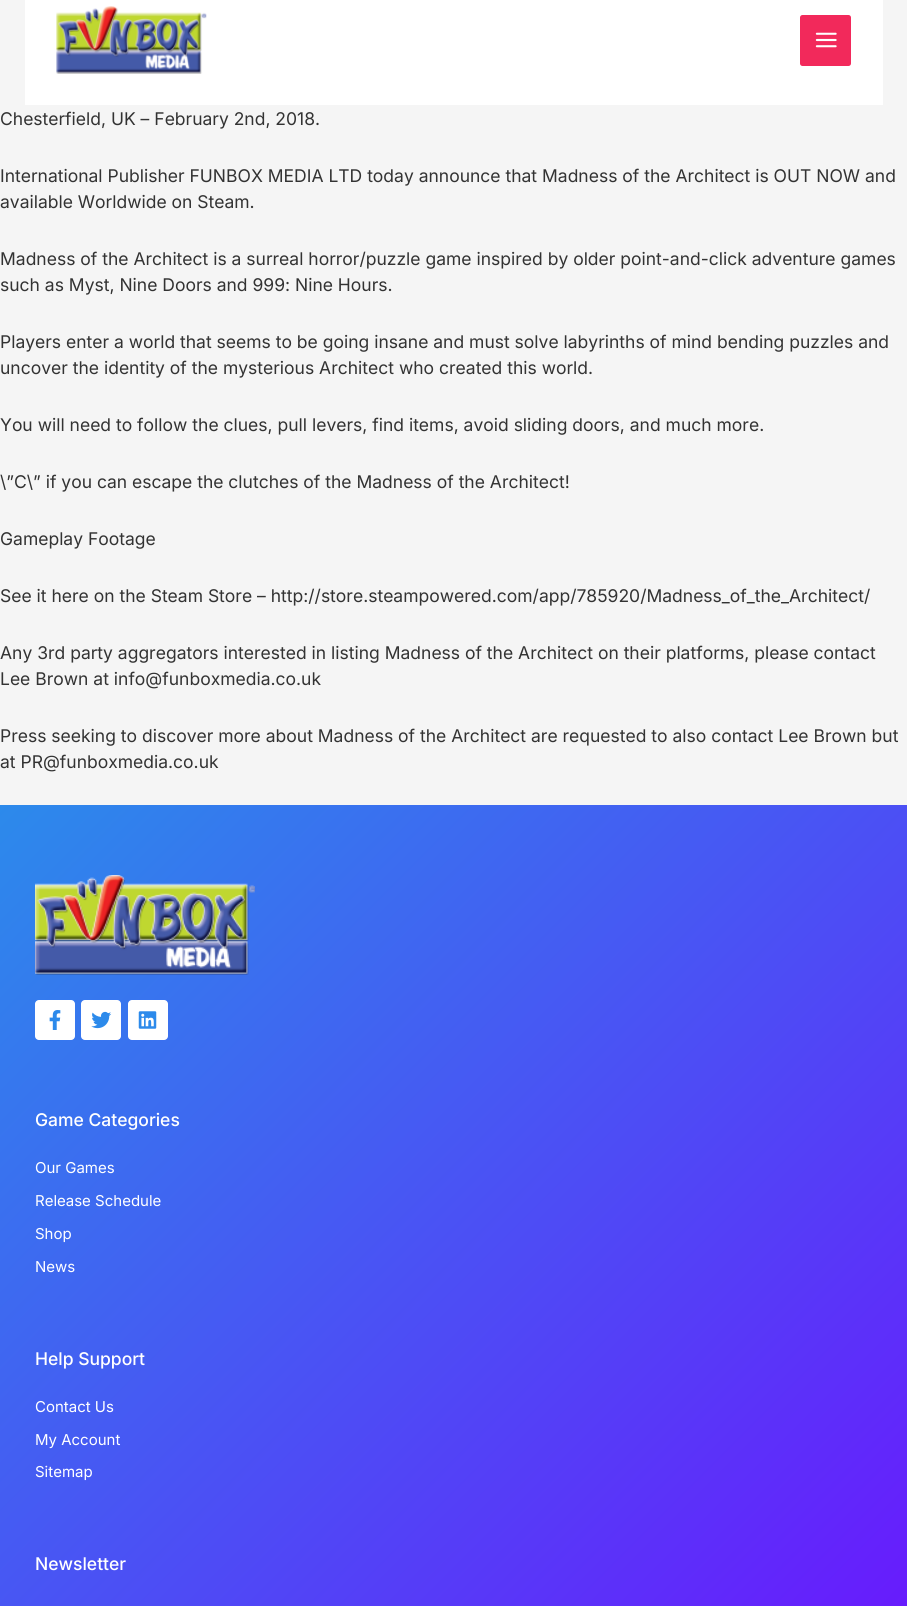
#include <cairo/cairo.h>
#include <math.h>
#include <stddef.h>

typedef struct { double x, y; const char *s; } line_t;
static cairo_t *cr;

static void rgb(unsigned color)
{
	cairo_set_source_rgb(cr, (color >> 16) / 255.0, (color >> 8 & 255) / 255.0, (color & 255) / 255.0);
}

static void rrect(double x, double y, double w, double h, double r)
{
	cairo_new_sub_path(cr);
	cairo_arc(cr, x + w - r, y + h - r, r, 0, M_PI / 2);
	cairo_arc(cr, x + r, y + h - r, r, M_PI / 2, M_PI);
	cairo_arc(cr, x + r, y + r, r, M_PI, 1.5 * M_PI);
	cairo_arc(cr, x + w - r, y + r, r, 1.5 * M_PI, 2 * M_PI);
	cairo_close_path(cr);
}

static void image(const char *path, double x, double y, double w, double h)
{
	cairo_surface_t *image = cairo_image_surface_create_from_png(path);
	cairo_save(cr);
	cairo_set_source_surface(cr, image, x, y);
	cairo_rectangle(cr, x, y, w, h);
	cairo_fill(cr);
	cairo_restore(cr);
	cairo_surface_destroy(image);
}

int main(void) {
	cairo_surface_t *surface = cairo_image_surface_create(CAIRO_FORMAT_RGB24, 907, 1606);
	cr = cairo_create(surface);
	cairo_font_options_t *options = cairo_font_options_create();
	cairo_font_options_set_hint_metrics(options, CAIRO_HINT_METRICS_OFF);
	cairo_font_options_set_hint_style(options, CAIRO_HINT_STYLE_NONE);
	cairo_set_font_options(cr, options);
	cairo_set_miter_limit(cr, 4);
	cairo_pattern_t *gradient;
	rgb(0xf5f5f5);
	cairo_paint(cr);
	rgb(0xffffff);
	cairo_rectangle(cr, 25, 0, 858, 105);
	cairo_fill(cr);
	image("img/1.png", 56, 6, 151, 68);
	rgb(0xf2295b);
	rrect(800, 15, 51, 51, 2.5);
	cairo_fill(cr);
	image("img/2.png", 815, 32, 22, 16);
	gradient = cairo_pattern_create_linear(-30, 835, 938, 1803);
	cairo_pattern_add_color_stop_rgba(gradient, 0, 0.173, 0.541, 0.922, 1);
	cairo_pattern_add_color_stop_rgba(gradient, 1, 0.435, 0.051, 1, 1);
	cairo_set_source(cr, gradient);
	cairo_pattern_destroy(gradient);
	cairo_rectangle(cr, 0, 805, 907, 801);
	cairo_fill(cr);
	image("img/3.png", 35, 875, 220, 100);
	rgb(0xffffff);
	rrect(35, 1000, 40, 40, 4);
	cairo_fill(cr);
	image("img/4.png", 49, 1010, 12, 20);
	rrect(81, 1000, 40, 40, 4);
	cairo_fill(cr);
	image("img/5.png", 91, 1011, 21, 18);
	rrect(128, 1000, 40, 40, 4);
	cairo_fill(cr);
	image("img/6.png", 138, 1011, 19, 18);
	cairo_select_font_face(cr, "Inter", CAIRO_FONT_SLANT_NORMAL, CAIRO_FONT_WEIGHT_NORMAL);
	cairo_set_font_size(cr, 17.5);
	rgb(0x333333);
	{
		static const line_t items[] = {
			{0, 125, "Chesterfield, UK – February 2nd, 2018."},
			{0, 182, "International Publisher FUNBOX MEDIA LTD today announce that Madness of the Architect is OUT NOW and"},
			{0, 208, "available Worldwide on Steam."},
			{0, 265, "Madness of the Architect is a surreal horror/puzzle game inspired by older point-and-click adventure games"},
			{0, 291, "such as Myst, Nine Doors and 999: Nine Hours."},
			{0, 348, "Players enter a world that seems to be going insane and must solve labyrinths of mind bending puzzles and"},
			{0, 374, "uncover the identity of the mysterious Architect who created this world."},
			{0, 431, "You will need to follow the clues, pull levers, find items, avoid sliding doors, and much more."},
			{0, 488, "\\”C\\” if you can escape the clutches of the Madness of the Architect!"},
			{0, 545, "Gameplay Footage"},
			{0, 602, "See it here on the Steam Store – http://store.steampowered.com/app/785920/Madness_of_the_Architect/"},
			{0, 659, "Any 3rd party aggregators interested in listing Madness of the Architect on their platforms, please contact"},
			{0, 685, "Lee Brown at info@funboxmedia.co.uk"},
			{0, 742, "Press seeking to discover more about Madness of the Architect are requested to also contact Lee Brown but"},
			{0, 768, "at PR@funboxmedia.co.uk"},
		};
		for (size_t i = 0; i < sizeof items / sizeof *items; i++) {
			cairo_move_to(cr, items[i].x, items[i].y);
			cairo_show_text(cr, items[i].s);
		}
	}
	cairo_select_font_face(cr, "Inter Medium", CAIRO_FONT_SLANT_NORMAL, CAIRO_FONT_WEIGHT_NORMAL);
	rgb(0xffffff);
	cairo_move_to(cr, 35, 1126);
	cairo_show_text(cr, "Game Categories");
	cairo_select_font_face(cr, "Inter", CAIRO_FONT_SLANT_NORMAL, CAIRO_FONT_WEIGHT_NORMAL);
	cairo_set_font_size(cr, 15);
	{
		static const line_t items[] = {
			{35, 1173, "Our Games"},
			{35, 1206, "Release Schedule"},
			{35, 1239, "Shop"},
			{35, 1272, "News"},
		};
		for (size_t i = 0; i < sizeof items / sizeof *items; i++) {
			cairo_move_to(cr, items[i].x, items[i].y);
			cairo_show_text(cr, items[i].s);
		}
	}
	cairo_select_font_face(cr, "Inter Medium", CAIRO_FONT_SLANT_NORMAL, CAIRO_FONT_WEIGHT_NORMAL);
	cairo_set_font_size(cr, 17.5);
	cairo_move_to(cr, 35, 1365);
	cairo_show_text(cr, "Help Support");
	cairo_select_font_face(cr, "Inter", CAIRO_FONT_SLANT_NORMAL, CAIRO_FONT_WEIGHT_NORMAL);
	cairo_set_font_size(cr, 15);
	{
		static const line_t items[] = {
			{35, 1412, "Contact Us"},
			{35, 1445, "My Account"},
			{35, 1477, "Sitemap"},
		};
		for (size_t i = 0; i < sizeof items / sizeof *items; i++) {
			cairo_move_to(cr, items[i].x, items[i].y);
			cairo_show_text(cr, items[i].s);
		}
	}
	cairo_select_font_face(cr, "Inter Medium", CAIRO_FONT_SLANT_NORMAL, CAIRO_FONT_WEIGHT_NORMAL);
	cairo_set_font_size(cr, 17.5);
	cairo_move_to(cr, 35, 1570);
	cairo_show_text(cr, "Newsletter");
	cairo_surface_write_to_png(surface, "page.png");
	cairo_font_options_destroy(options);
	cairo_destroy(cr);
	cairo_surface_destroy(surface);
	return 0;
}
